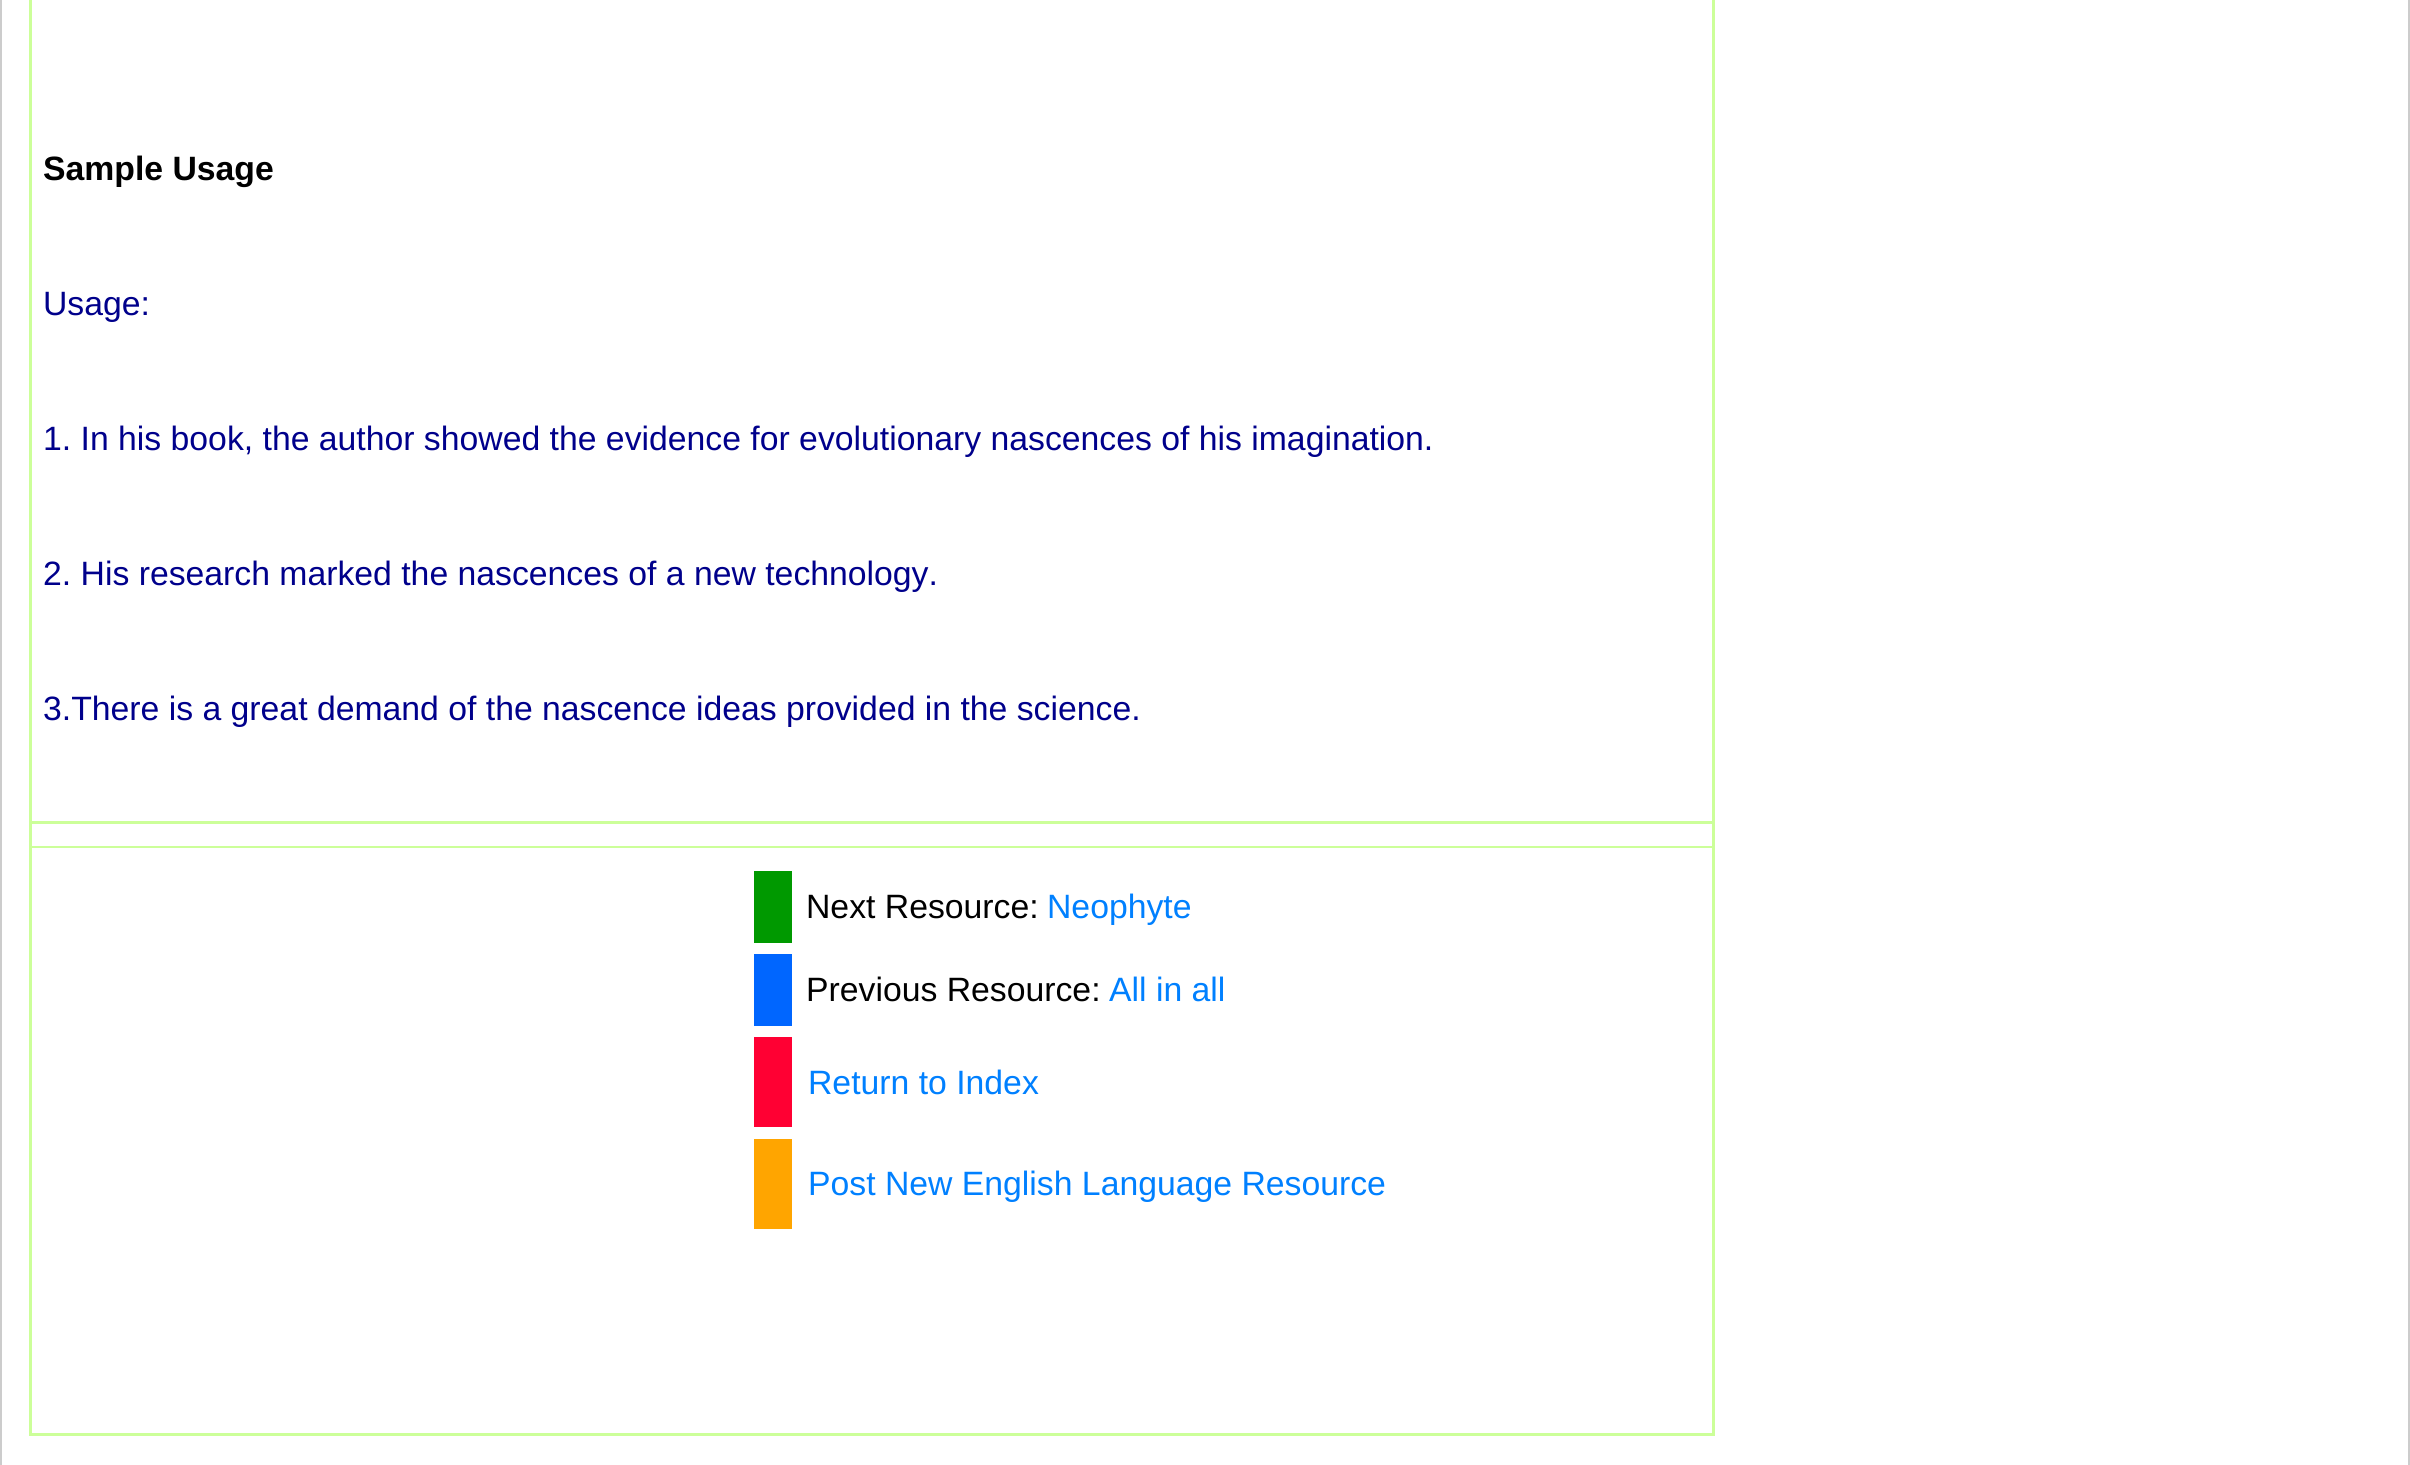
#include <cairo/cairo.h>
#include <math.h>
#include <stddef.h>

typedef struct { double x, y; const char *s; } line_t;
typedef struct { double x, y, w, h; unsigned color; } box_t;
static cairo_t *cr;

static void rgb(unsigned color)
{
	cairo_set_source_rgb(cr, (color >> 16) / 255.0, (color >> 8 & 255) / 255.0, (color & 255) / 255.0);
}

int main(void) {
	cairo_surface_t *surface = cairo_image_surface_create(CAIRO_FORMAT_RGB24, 2410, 1465);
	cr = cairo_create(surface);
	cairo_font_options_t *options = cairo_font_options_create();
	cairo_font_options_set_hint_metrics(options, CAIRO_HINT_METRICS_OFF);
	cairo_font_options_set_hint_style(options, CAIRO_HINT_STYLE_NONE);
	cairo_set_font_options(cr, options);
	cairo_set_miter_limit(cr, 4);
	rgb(0xffffff);
	cairo_paint(cr);
	cairo_rectangle(cr, 1, -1, 2408, 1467);
	rgb(0xcccccc);
	cairo_stroke(cr);
	{
		static const box_t items[] = {
			{29, 0, 1686, 1436, 0xccff99},
			{32, 0, 1680, 821, 0xffffff},
			{32, 824, 1680, 22, 0xffffff},
			{32, 848, 1680, 585, 0xffffff},
			{754, 871, 38, 72, 0x009900},
			{754, 954, 38, 72, 0x0066ff},
			{754, 1037, 38, 90, 0xff0033},
			{754, 1139, 38, 90, 0xffa500},
		};
		for (size_t i = 0; i < sizeof items / sizeof *items; i++) {
			rgb(items[i].color);
			cairo_rectangle(cr, items[i].x, items[i].y, items[i].w, items[i].h);
			cairo_fill(cr);
		}
	}
	cairo_select_font_face(cr, "Liberation Sans", CAIRO_FONT_SLANT_NORMAL, CAIRO_FONT_WEIGHT_BOLD);
	cairo_set_font_size(cr, 33.75);
	rgb(0x000000);
	cairo_move_to(cr, 43, 180);
	cairo_show_text(cr, "Sample Usage");
	cairo_select_font_face(cr, "Liberation Sans", CAIRO_FONT_SLANT_NORMAL, CAIRO_FONT_WEIGHT_NORMAL);
	rgb(0x00008b);
	{
		static const line_t items[] = {
			{43, 315, "Usage:"},
			{43, 450, "1. In his book, the author showed the evidence for evolutionary nascences of his imagination."},
			{43, 585, "2. His research marked the nascences of a new technology."},
			{43, 720, "3.There is a great demand of the nascence ideas provided in the science."},
		};
		for (size_t i = 0; i < sizeof items / sizeof *items; i++) {
			cairo_move_to(cr, items[i].x, items[i].y);
			cairo_show_text(cr, items[i].s);
		}
	}
	rgb(0x000000);
	cairo_move_to(cr, 806, 918);
	cairo_show_text(cr, "Next Resource:");
	rgb(0x0080ff);
	cairo_move_to(cr, 1047, 918);
	cairo_show_text(cr, "Neophyte");
	rgb(0x000000);
	cairo_move_to(cr, 806, 1001);
	cairo_show_text(cr, "Previous Resource:");
	rgb(0x0080ff);
	{
		static const line_t items[] = {
			{1109, 1001, "All in all"},
			{808, 1094, "Return to Index"},
			{808, 1195, "Post New English Language Resource"},
		};
		for (size_t i = 0; i < sizeof items / sizeof *items; i++) {
			cairo_move_to(cr, items[i].x, items[i].y);
			cairo_show_text(cr, items[i].s);
		}
	}
	cairo_surface_write_to_png(surface, "page.png");
	cairo_font_options_destroy(options);
	cairo_destroy(cr);
	cairo_surface_destroy(surface);
	return 0;
}
